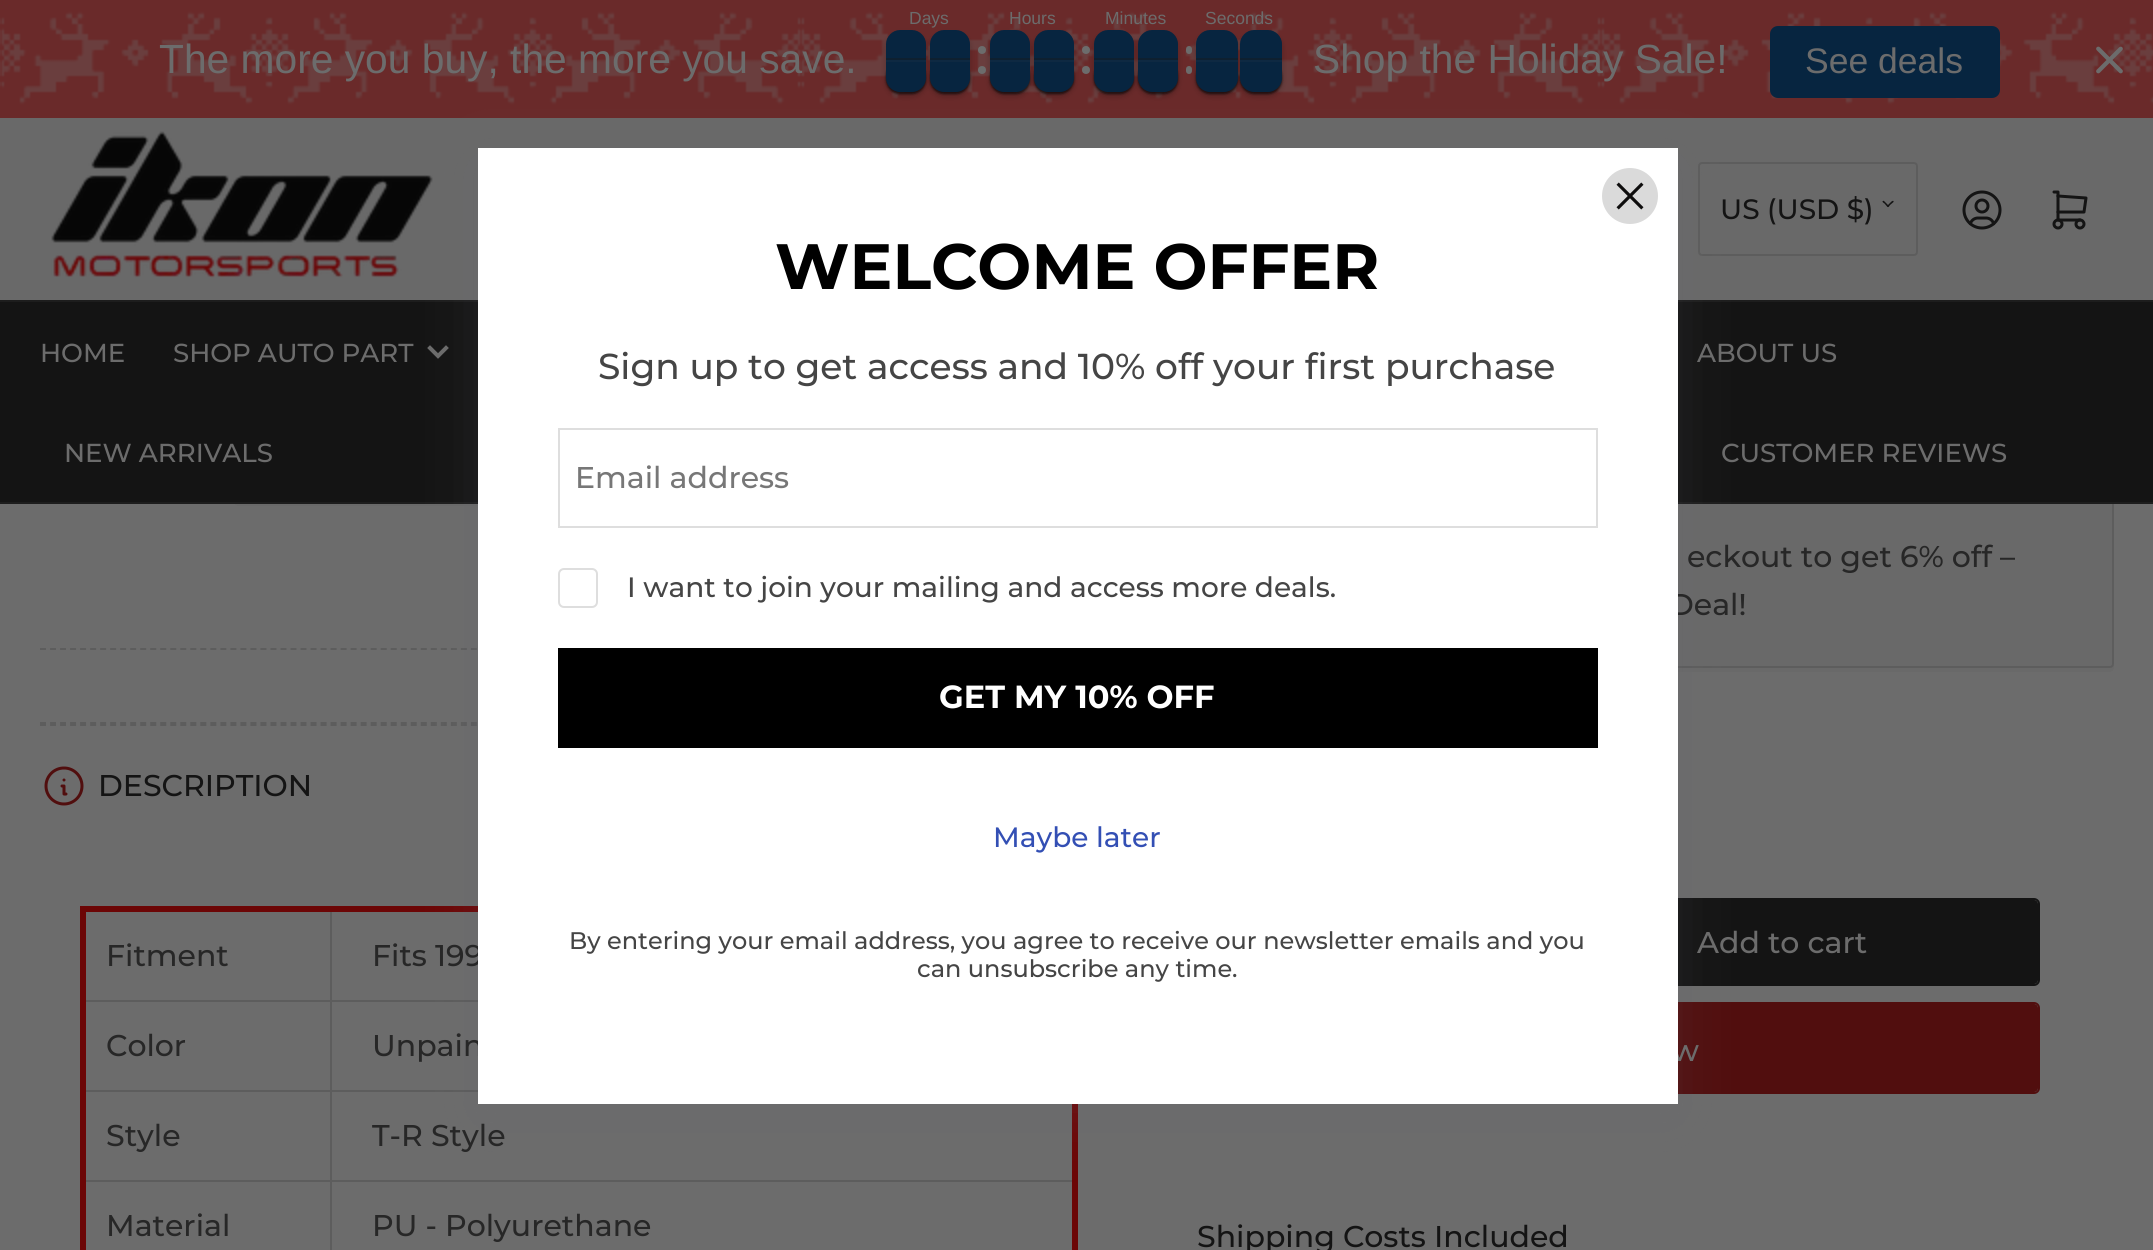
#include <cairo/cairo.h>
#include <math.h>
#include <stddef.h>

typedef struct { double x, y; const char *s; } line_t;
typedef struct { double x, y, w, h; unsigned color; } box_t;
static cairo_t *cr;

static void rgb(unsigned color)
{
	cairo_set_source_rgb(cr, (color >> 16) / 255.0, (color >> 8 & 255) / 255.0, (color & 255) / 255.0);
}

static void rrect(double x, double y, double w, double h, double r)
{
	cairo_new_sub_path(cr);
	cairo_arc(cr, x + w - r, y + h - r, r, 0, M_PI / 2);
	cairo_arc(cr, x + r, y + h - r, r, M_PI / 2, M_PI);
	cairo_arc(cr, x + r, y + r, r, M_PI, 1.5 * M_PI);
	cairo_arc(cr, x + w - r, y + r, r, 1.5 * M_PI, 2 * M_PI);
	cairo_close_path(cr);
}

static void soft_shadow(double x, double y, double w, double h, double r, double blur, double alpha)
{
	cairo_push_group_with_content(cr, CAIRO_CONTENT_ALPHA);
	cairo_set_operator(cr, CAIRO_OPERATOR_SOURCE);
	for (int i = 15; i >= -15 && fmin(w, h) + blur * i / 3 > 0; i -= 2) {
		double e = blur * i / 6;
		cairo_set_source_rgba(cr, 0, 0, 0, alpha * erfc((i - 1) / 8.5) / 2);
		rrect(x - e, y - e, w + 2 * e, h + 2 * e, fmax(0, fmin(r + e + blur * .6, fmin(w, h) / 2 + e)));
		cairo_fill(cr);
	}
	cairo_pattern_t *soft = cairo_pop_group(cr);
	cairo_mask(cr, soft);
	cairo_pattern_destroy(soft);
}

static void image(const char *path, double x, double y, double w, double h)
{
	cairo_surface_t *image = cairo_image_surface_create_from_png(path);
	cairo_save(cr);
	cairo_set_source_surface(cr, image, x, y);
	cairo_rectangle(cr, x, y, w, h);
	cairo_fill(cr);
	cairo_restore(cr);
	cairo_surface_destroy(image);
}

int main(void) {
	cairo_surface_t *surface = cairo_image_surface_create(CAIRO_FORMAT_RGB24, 2153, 1250);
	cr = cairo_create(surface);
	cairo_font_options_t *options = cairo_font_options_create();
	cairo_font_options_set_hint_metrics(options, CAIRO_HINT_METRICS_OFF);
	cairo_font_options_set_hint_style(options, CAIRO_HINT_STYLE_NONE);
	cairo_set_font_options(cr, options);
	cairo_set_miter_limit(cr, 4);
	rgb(0x6c6c6c);
	cairo_paint(cr);
	image("img/1.png", 0, 0, 2153, 118);
	rgb(0x060606);
	soft_shadow(886, 34, 40, 62, 14, 3, 0.24);
	soft_shadow(886, 62, 40, 32, 14, 1, 0.4);
	soft_shadow(930, 34, 40, 62, 14, 3, 0.24);
	rgb(0x072540);
	cairo_new_path(cr);
	cairo_move_to(cr, 900, 30);
	cairo_line_to(cr, 912, 30);
	cairo_curve_to(cr, 919.5, 30, 926, 36.5, 926, 44);
	cairo_line_to(cr, 926, 60);
	cairo_line_to(cr, 886, 60);
	cairo_line_to(cr, 886, 44);
	cairo_curve_to(cr, 886, 36.5, 892.5, 30, 900, 30);
	cairo_close_path(cr);
	cairo_fill(cr);
	cairo_set_source_rgba(cr, 0.102, 0.102, 0.102, 0.4);
	cairo_rectangle(cr, 886, 58, 40, 2);
	cairo_fill(cr);
	rgb(0x060606);
	soft_shadow(886, 62, 40, 32, 14, 1, 0.4);
	rgb(0x072540);
	cairo_new_path(cr);
	cairo_move_to(cr, 886, 60);
	cairo_line_to(cr, 926, 60);
	cairo_line_to(cr, 926, 78);
	cairo_curve_to(cr, 926, 85.5, 919.5, 92, 912, 92);
	cairo_line_to(cr, 900, 92);
	cairo_curve_to(cr, 892.5, 92, 886, 85.5, 886, 78);
	cairo_close_path(cr);
	cairo_fill(cr);
	cairo_set_source_rgba(cr, 0.345, 0.345, 0.345, 0.1);
	cairo_rectangle(cr, 886, 60, 40, 2);
	cairo_fill(cr);
	rgb(0x060606);
	soft_shadow(930, 62, 40, 32, 14, 1, 0.4);
	rgb(0x072540);
	cairo_new_path(cr);
	cairo_move_to(cr, 944, 30);
	cairo_line_to(cr, 956, 30);
	cairo_curve_to(cr, 963.5, 30, 970, 36.5, 970, 44);
	cairo_line_to(cr, 970, 60);
	cairo_line_to(cr, 930, 60);
	cairo_line_to(cr, 930, 44);
	cairo_curve_to(cr, 930, 36.5, 936.5, 30, 944, 30);
	cairo_close_path(cr);
	cairo_fill(cr);
	cairo_set_source_rgba(cr, 0.102, 0.102, 0.102, 0.4);
	cairo_rectangle(cr, 930, 58, 40, 2);
	cairo_fill(cr);
	rgb(0x060606);
	soft_shadow(930, 62, 40, 32, 14, 1, 0.4);
	rgb(0x072540);
	cairo_new_path(cr);
	cairo_move_to(cr, 930, 60);
	cairo_line_to(cr, 970, 60);
	cairo_line_to(cr, 970, 78);
	cairo_curve_to(cr, 970, 85.5, 963.5, 92, 956, 92);
	cairo_line_to(cr, 944, 92);
	cairo_curve_to(cr, 936.5, 92, 930, 85.5, 930, 78);
	cairo_close_path(cr);
	cairo_fill(cr);
	cairo_set_source_rgba(cr, 0.345, 0.345, 0.345, 0.1);
	cairo_rectangle(cr, 930, 60, 40, 2);
	cairo_fill(cr);
	rgb(0x6c6c6c);
	cairo_arc(cr, 982, 50, 4, 0, 2 * M_PI);
	cairo_fill(cr);
	cairo_arc(cr, 982, 70, 4, 0, 2 * M_PI);
	cairo_fill(cr);
	rgb(0x060606);
	soft_shadow(990, 34, 40, 62, 14, 3, 0.24);
	soft_shadow(990, 62, 40, 32, 14, 1, 0.4);
	soft_shadow(1034, 34, 40, 62, 14, 3, 0.24);
	rgb(0x072540);
	cairo_new_path(cr);
	cairo_move_to(cr, 1004, 30);
	cairo_line_to(cr, 1016, 30);
	cairo_curve_to(cr, 1023.5, 30, 1030, 36.5, 1030, 44);
	cairo_line_to(cr, 1030, 60);
	cairo_line_to(cr, 990, 60);
	cairo_line_to(cr, 990, 44);
	cairo_curve_to(cr, 990, 36.5, 996.5, 30, 1004, 30);
	cairo_close_path(cr);
	cairo_fill(cr);
	cairo_set_source_rgba(cr, 0.102, 0.102, 0.102, 0.4);
	cairo_rectangle(cr, 990, 58, 40, 2);
	cairo_fill(cr);
	rgb(0x060606);
	soft_shadow(990, 62, 40, 32, 14, 1, 0.4);
	rgb(0x072540);
	cairo_new_path(cr);
	cairo_move_to(cr, 990, 60);
	cairo_line_to(cr, 1030, 60);
	cairo_line_to(cr, 1030, 78);
	cairo_curve_to(cr, 1030, 85.5, 1023.5, 92, 1016, 92);
	cairo_line_to(cr, 1004, 92);
	cairo_curve_to(cr, 996.5, 92, 990, 85.5, 990, 78);
	cairo_close_path(cr);
	cairo_fill(cr);
	cairo_set_source_rgba(cr, 0.345, 0.345, 0.345, 0.1);
	cairo_rectangle(cr, 990, 60, 40, 2);
	cairo_fill(cr);
	rgb(0x060606);
	soft_shadow(1034, 62, 40, 32, 14, 1, 0.4);
	rgb(0x072540);
	cairo_new_path(cr);
	cairo_move_to(cr, 1048, 30);
	cairo_line_to(cr, 1060, 30);
	cairo_curve_to(cr, 1067.5, 30, 1074, 36.5, 1074, 44);
	cairo_line_to(cr, 1074, 60);
	cairo_line_to(cr, 1034, 60);
	cairo_line_to(cr, 1034, 44);
	cairo_curve_to(cr, 1034, 36.5, 1040.5, 30, 1048, 30);
	cairo_close_path(cr);
	cairo_fill(cr);
	cairo_set_source_rgba(cr, 0.102, 0.102, 0.102, 0.4);
	cairo_rectangle(cr, 1034, 58, 40, 2);
	cairo_fill(cr);
	rgb(0x060606);
	soft_shadow(1034, 62, 40, 32, 14, 1, 0.4);
	rgb(0x072540);
	cairo_new_path(cr);
	cairo_move_to(cr, 1034, 60);
	cairo_line_to(cr, 1074, 60);
	cairo_line_to(cr, 1074, 78);
	cairo_curve_to(cr, 1074, 85.5, 1067.5, 92, 1060, 92);
	cairo_line_to(cr, 1048, 92);
	cairo_curve_to(cr, 1040.5, 92, 1034, 85.5, 1034, 78);
	cairo_close_path(cr);
	cairo_fill(cr);
	cairo_set_source_rgba(cr, 0.345, 0.345, 0.345, 0.1);
	cairo_rectangle(cr, 1034, 60, 40, 2);
	cairo_fill(cr);
	rgb(0x6c6c6c);
	cairo_arc(cr, 1086, 50, 4, 0, 2 * M_PI);
	cairo_fill(cr);
	cairo_arc(cr, 1086, 70, 4, 0, 2 * M_PI);
	cairo_fill(cr);
	rgb(0x060606);
	soft_shadow(1094, 34, 40, 62, 14, 3, 0.24);
	soft_shadow(1094, 62, 40, 32, 14, 1, 0.4);
	soft_shadow(1138, 34, 40, 62, 14, 3, 0.24);
	rgb(0x072540);
	cairo_new_path(cr);
	cairo_move_to(cr, 1108, 30);
	cairo_line_to(cr, 1120, 30);
	cairo_curve_to(cr, 1127.5, 30, 1134, 36.5, 1134, 44);
	cairo_line_to(cr, 1134, 60);
	cairo_line_to(cr, 1094, 60);
	cairo_line_to(cr, 1094, 44);
	cairo_curve_to(cr, 1094, 36.5, 1100.5, 30, 1108, 30);
	cairo_close_path(cr);
	cairo_fill(cr);
	cairo_set_source_rgba(cr, 0.102, 0.102, 0.102, 0.4);
	cairo_rectangle(cr, 1094, 58, 40, 2);
	cairo_fill(cr);
	rgb(0x060606);
	soft_shadow(1094, 62, 40, 32, 14, 1, 0.4);
	rgb(0x072540);
	cairo_new_path(cr);
	cairo_move_to(cr, 1094, 60);
	cairo_line_to(cr, 1134, 60);
	cairo_line_to(cr, 1134, 78);
	cairo_curve_to(cr, 1134, 85.5, 1127.5, 92, 1120, 92);
	cairo_line_to(cr, 1108, 92);
	cairo_curve_to(cr, 1100.5, 92, 1094, 85.5, 1094, 78);
	cairo_close_path(cr);
	cairo_fill(cr);
	cairo_set_source_rgba(cr, 0.345, 0.345, 0.345, 0.1);
	cairo_rectangle(cr, 1094, 60, 40, 2);
	cairo_fill(cr);
	rgb(0x060606);
	soft_shadow(1138, 62, 40, 32, 14, 1, 0.4);
	rgb(0x072540);
	cairo_new_path(cr);
	cairo_move_to(cr, 1152, 30);
	cairo_line_to(cr, 1164, 30);
	cairo_curve_to(cr, 1171.5, 30, 1178, 36.5, 1178, 44);
	cairo_line_to(cr, 1178, 60);
	cairo_line_to(cr, 1138, 60);
	cairo_line_to(cr, 1138, 44);
	cairo_curve_to(cr, 1138, 36.5, 1144.5, 30, 1152, 30);
	cairo_close_path(cr);
	cairo_fill(cr);
	cairo_set_source_rgba(cr, 0.102, 0.102, 0.102, 0.4);
	cairo_rectangle(cr, 1138, 58, 40, 2);
	cairo_fill(cr);
	rgb(0x060606);
	soft_shadow(1138, 62, 40, 32, 14, 1, 0.4);
	rgb(0x072540);
	cairo_new_path(cr);
	cairo_move_to(cr, 1138, 60);
	cairo_line_to(cr, 1178, 60);
	cairo_line_to(cr, 1178, 78);
	cairo_curve_to(cr, 1178, 85.5, 1171.5, 92, 1164, 92);
	cairo_line_to(cr, 1152, 92);
	cairo_curve_to(cr, 1144.5, 92, 1138, 85.5, 1138, 78);
	cairo_close_path(cr);
	cairo_fill(cr);
	cairo_set_source_rgba(cr, 0.345, 0.345, 0.345, 0.1);
	cairo_rectangle(cr, 1138, 60, 40, 2);
	cairo_fill(cr);
	rgb(0x6c6c6c);
	rrect(1186, 46, 6, 8, 3);
	cairo_fill(cr);
	rrect(1186, 66, 6, 8, 3);
	cairo_fill(cr);
	rgb(0x060606);
	soft_shadow(1196, 34, 42, 62, 14, 3, 0.24);
	soft_shadow(1196, 62, 42, 32, 14, 1, 0.4);
	soft_shadow(1240, 34, 42, 62, 14, 3, 0.24);
	soft_shadow(1240, 62, 42, 32, 14, 1, 0.4);
	rgb(0x072540);
	cairo_new_path(cr);
	cairo_move_to(cr, 1210, 30);
	cairo_line_to(cr, 1224, 30);
	cairo_curve_to(cr, 1231.5, 30, 1238, 36.5, 1238, 44);
	cairo_line_to(cr, 1238, 60);
	cairo_line_to(cr, 1196, 60);
	cairo_line_to(cr, 1196, 44);
	cairo_curve_to(cr, 1196, 36.5, 1202.5, 30, 1210, 30);
	cairo_close_path(cr);
	cairo_fill(cr);
	cairo_set_source_rgba(cr, 0.102, 0.102, 0.102, 0.4);
	cairo_rectangle(cr, 1196, 58, 42, 2);
	cairo_fill(cr);
	rgb(0x060606);
	soft_shadow(1196, 62, 42, 32, 14, 1, 0.4);
	rgb(0x072540);
	cairo_new_path(cr);
	cairo_move_to(cr, 1196, 60);
	cairo_line_to(cr, 1238, 60);
	cairo_line_to(cr, 1238, 78);
	cairo_curve_to(cr, 1238, 85.5, 1231.5, 92, 1224, 92);
	cairo_line_to(cr, 1210, 92);
	cairo_curve_to(cr, 1202.5, 92, 1196, 85.5, 1196, 78);
	cairo_close_path(cr);
	cairo_fill(cr);
	cairo_set_source_rgba(cr, 0.345, 0.345, 0.345, 0.1);
	cairo_rectangle(cr, 1196, 60, 42, 2);
	cairo_fill(cr);
	rgb(0x072540);
	cairo_new_path(cr);
	cairo_move_to(cr, 1254, 30);
	cairo_line_to(cr, 1268, 30);
	cairo_curve_to(cr, 1275.5, 30, 1282, 36.5, 1282, 44);
	cairo_line_to(cr, 1282, 60);
	cairo_line_to(cr, 1240, 60);
	cairo_line_to(cr, 1240, 44);
	cairo_curve_to(cr, 1240, 36.5, 1246.5, 30, 1254, 30);
	cairo_close_path(cr);
	cairo_fill(cr);
	cairo_set_source_rgba(cr, 0.102, 0.102, 0.102, 0.4);
	cairo_rectangle(cr, 1240, 58, 42, 2);
	cairo_fill(cr);
	rgb(0x060606);
	soft_shadow(1240, 62, 42, 32, 14, 1, 0.4);
	rgb(0x072540);
	cairo_new_path(cr);
	cairo_move_to(cr, 1240, 60);
	cairo_line_to(cr, 1282, 60);
	cairo_line_to(cr, 1282, 78);
	cairo_curve_to(cr, 1282, 85.5, 1275.5, 92, 1268, 92);
	cairo_line_to(cr, 1254, 92);
	cairo_curve_to(cr, 1246.5, 92, 1240, 85.5, 1240, 78);
	cairo_close_path(cr);
	cairo_fill(cr);
	cairo_set_source_rgba(cr, 0.345, 0.345, 0.345, 0.1);
	cairo_rectangle(cr, 1240, 60, 42, 2);
	cairo_fill(cr);
	rgb(0x072540);
	rrect(1770, 26, 230, 72, 8);
	cairo_fill(cr);
	image("img/2.png", 2096, 46, 27, 28);
	rgb(0x696969);
	cairo_rectangle(cr, 0, 118, 2153, 182);
	cairo_fill(cr);
	image("img/3.png", 51, 131, 382, 147);
	rrect(1699, 163, 218, 92, 3);
	rgb(0x5d5d5d);
	cairo_stroke(cr);
	rgb(0x141414);
	cairo_new_path(cr);
	cairo_move_to(cr, 1884, 201);
	cairo_line_to(cr, 1887.5, 204.5);
	cairo_curve_to(cr, 1889, 206, 1889, 207.5, 1887.5, 207);
	cairo_line_to(cr, 1884.5, 203.5);
	cairo_curve_to(cr, 1884, 203, 1882.5, 202.5, 1882.5, 201.5);
	cairo_curve_to(cr, 1882.5, 201, 1883.5, 200.5, 1884, 201);
	cairo_close_path(cr);
	cairo_fill(cr);
	cairo_new_path(cr);
	cairo_move_to(cr, 1887.5, 205.5);
	cairo_line_to(cr, 1891.5, 201.5);
	cairo_curve_to(cr, 1892.5, 200.5, 1894, 200.5, 1893.5, 202);
	cairo_line_to(cr, 1890, 205);
	cairo_curve_to(cr, 1889.5, 205.5, 1889, 207, 1888, 207);
	cairo_curve_to(cr, 1887.5, 206.5, 1887, 206, 1887.5, 205.5);
	cairo_close_path(cr);
	cairo_fill(cr);
	image("img/4.png", 1962, 190, 40, 40);
	image("img/5.png", 2052, 190, 36, 40);
	rgb(0x696969);
	cairo_new_path(cr);
	cairo_move_to(cr, 234, 498);
	cairo_line_to(cr, 234, 502);
	cairo_curve_to(cr, 234, 504, 236, 506, 238, 506);
	cairo_line_to(cr, 1074, 506);
	cairo_curve_to(cr, 1076, 506, 1078, 504, 1078, 502);
	cairo_line_to(cr, 1078, 498);
	cairo_curve_to(cr, 1078, 500, 1076, 502, 1074, 502);
	cairo_line_to(cr, 238, 502);
	cairo_curve_to(cr, 236, 502, 234, 500, 234, 498);
	cairo_close_path(cr);
	cairo_fill(cr);
	cairo_new_path(cr);
	cairo_move_to(cr, 1198, 664);
	cairo_line_to(cr, 1198, 668);
	cairo_curve_to(cr, 1198, 670, 1200, 672, 1202, 672);
	cairo_line_to(cr, 2110, 672);
	cairo_curve_to(cr, 2112, 672, 2114, 670, 2114, 668);
	cairo_line_to(cr, 2114, 664);
	cairo_curve_to(cr, 2114, 666, 2112, 668, 2110, 668);
	cairo_line_to(cr, 1202, 668);
	cairo_curve_to(cr, 1200, 668, 1198, 666, 1198, 664);
	cairo_close_path(cr);
	cairo_fill(cr);
	rrect(1199, 493, 914, 174, 3);
	cairo_fill_preserve(cr);
	rgb(0x5d5d5d);
	cairo_stroke(cr);
	{
		static const box_t items[] = {
			{0, 302, 2153, 200, 0x141414},
			{0, 300, 2153, 2, 0x1d1d1d},
			{0, 502, 2153, 2, 0x1d1d1d},
		};
		for (size_t i = 0; i < sizeof items / sizeof *items; i++) {
			rgb(items[i].color);
			cairo_rectangle(cr, items[i].x, items[i].y, items[i].w, items[i].h);
			cairo_fill(cr);
		}
	}
	cairo_new_path(cr);
	cairo_move_to(cr, 446, 348);
	cairo_line_to(cr, 438, 356);
	cairo_line_to(cr, 430, 348);
	rgb(0x6c6c6c);
	cairo_set_line_width(cr, 4);
	cairo_set_line_cap(cr, CAIRO_LINE_CAP_SQUARE);
	cairo_stroke(cr);
	cairo_new_path(cr);
	cairo_move_to(cr, 40, 649);
	cairo_line_to(cr, 1078, 649);
	rgb(0x5d5d5d);
	cairo_set_line_width(cr, 2);
	cairo_set_line_cap(cr, CAIRO_LINE_CAP_BUTT);
	cairo_set_dash(cr, (double[]){6, 4.02}, 2, 0);
	cairo_stroke(cr);
	cairo_new_path(cr);
	cairo_move_to(cr, 40, 723);
	cairo_line_to(cr, 1078, 723);
	cairo_stroke(cr);
	cairo_new_path(cr);
	cairo_move_to(cr, 40, 725);
	cairo_line_to(cr, 1078, 725);
	cairo_stroke(cr);
	{
		static const box_t items[] = {
			{330, 1000, 148, 2, 0x5d5d5d},
			{330, 1090, 148, 2, 0x5d5d5d},
			{330, 1180, 746, 2, 0x5d5d5d},
			{330, 1180, 2, 70, 0x5d5d5d},
			{82, 1180, 250, 2, 0x5d5d5d},
			{330, 1090, 2, 92, 0x5d5d5d},
			{82, 1090, 250, 2, 0x5d5d5d},
			{330, 1000, 2, 92, 0x5d5d5d},
			{82, 1000, 250, 2, 0x5d5d5d},
			{330, 908, 2, 94, 0x5d5d5d},
			{80, 906, 398, 6, 0x6c0606},
			{1072, 1104, 6, 146, 0x6c0606},
		};
		for (size_t i = 0; i < sizeof items / sizeof *items; i++) {
			rgb(items[i].color);
			cairo_rectangle(cr, items[i].x, items[i].y, items[i].w, items[i].h);
			cairo_fill(cr);
		}
	}
	rrect(1527, 899, 512, 86, 5);
	rgb(0x141414);
	cairo_set_dash(cr, NULL, 0, 0);
	cairo_stroke(cr);
	rrect(1528, 900, 510, 84, 4);
	cairo_fill(cr);
	rrect(1197, 1003, 842, 90, 5);
	rgb(0x510e0e);
	cairo_stroke(cr);
	rrect(1198, 1004, 840, 88, 4);
	cairo_fill(cr);
	rgb(0x64646f);
	soft_shadow(478, 162, 1200, 956, 0, 29, 0.2);
	image("img/7.png", 44, 766, 40, 40);
	rgb(0x6c0606);
	cairo_rectangle(cr, 80, 906, 6, 344);
	cairo_fill(cr);
	cairo_select_font_face(cr, "Liberation Sans", CAIRO_FONT_SLANT_NORMAL, CAIRO_FONT_WEIGHT_NORMAL);
	cairo_set_font_size(cr, 17.5);
	rgb(0x6c6c6c);
	{
		static const line_t items[] = {
			{909, 24, "Days"},
			{1009, 24, "Hours"},
			{1105, 24, "Minutes"},
			{1205, 24, "Seconds"},
		};
		for (size_t i = 0; i < sizeof items / sizeof *items; i++) {
			cairo_move_to(cr, items[i].x, items[i].y);
			cairo_show_text(cr, items[i].s);
		}
	}
	cairo_set_font_size(cr, 40.75);
	cairo_move_to(cr, 159, 73);
	cairo_show_text(cr, "The more you buy, the more you save.");
	cairo_move_to(cr, 1313, 73);
	cairo_show_text(cr, "Shop the Holiday Sale!");
	cairo_set_font_size(cr, 35.5);
	cairo_move_to(cr, 1805, 73);
	cairo_show_text(cr, "See deals");
	cairo_select_font_face(cr, "Montserrat Medium", CAIRO_FONT_SLANT_NORMAL, CAIRO_FONT_WEIGHT_NORMAL);
	cairo_set_font_size(cr, 28);
	rgb(0x141414);
	cairo_move_to(cr, 1720, 219);
	cairo_show_text(cr, "US (USD $)");
	cairo_set_font_size(cr, 26);
	rgb(0x6c6c6c);
	{
		static const line_t items[] = {
			{40, 362, "HOME"},
			{173, 362, "SHOP AUTO PART"},
			{64, 462, "NEW ARRIVALS"},
			{1697, 362, "ABOUT US"},
			{1721, 462, "CUSTOMER REVIEWS"},
		};
		for (size_t i = 0; i < sizeof items / sizeof *items; i++) {
			cairo_move_to(cr, items[i].x, items[i].y);
			cairo_show_text(cr, items[i].s);
		}
	}
	cairo_set_font_size(cr, 30);
	rgb(0x141414);
	cairo_move_to(cr, 98, 796);
	cairo_show_text(cr, "DESCRIPTION");
	rgb(0x272727);
	{
		static const line_t items[] = {
			{106, 966, "Fitment"},
			{372, 966, "Fits 199"},
			{106, 1056, "Color"},
			{372, 1056, "Unpain"},
			{106, 1146, "Style"},
			{372, 1146, "T-R Style"},
			{106, 1236, "Material"},
			{372, 1236, "PU - Polyurethane"},
			{1687, 567, "eckout to get 6% off –"},
			{1669, 615, "Deal!"},
		};
		for (size_t i = 0; i < sizeof items / sizeof *items; i++) {
			cairo_move_to(cr, items[i].x, items[i].y);
			cairo_show_text(cr, items[i].s);
		}
	}
	rgb(0x6c6c6c);
	cairo_move_to(cr, 1697, 953);
	cairo_show_text(cr, "Add to cart");
	cairo_move_to(cr, 1672, 1061);
	cairo_show_text(cr, "w");
	rgb(0xffffff);
	cairo_rectangle(cr, 478, 148, 1200, 956);
	cairo_fill(cr);
	rrect(559, 569, 38, 38, 5);
	rgb(0xdedede);
	cairo_stroke(cr);
	cairo_set_font_size(cr, 28);
	rgb(0x454545);
	cairo_move_to(cr, 627, 597);
	cairo_show_text(cr, "I want to join your mailing and access more deals.");
	cairo_rectangle(cr, 559, 429, 1038, 98);
	rgb(0xdedede);
	cairo_stroke(cr);
	cairo_set_font_size(cr, 30);
	rgb(0x777777);
	cairo_move_to(cr, 575, 488);
	cairo_show_text(cr, "Email address");
	rgb(0xdadada);
	cairo_new_path(cr);
	cairo_arc(cr, 1630, 196, 28, 0, 2 * M_PI);
	cairo_fill(cr);
	image("img/6.png", 1616, 182, 28, 28);
	cairo_set_font_size(cr, 24);
	rgb(0x454545);
	cairo_move_to(cr, 917, 977);
	cairo_show_text(cr, "can unsubscribe any time.");
	cairo_move_to(cr, 569, 949);
	cairo_show_text(cr, "By entering your email address, you agree to receive our newsletter emails and you");
	cairo_set_font_size(cr, 28);
	rgb(0x334fb4);
	cairo_move_to(cr, 993, 847);
	cairo_show_text(cr, "Maybe later");
	rgb(0x000000);
	cairo_rectangle(cr, 558, 648, 1040, 100);
	cairo_fill(cr);
	cairo_select_font_face(cr, "Montserrat", CAIRO_FONT_SLANT_NORMAL, CAIRO_FONT_WEIGHT_BOLD);
	cairo_set_font_size(cr, 32);
	rgb(0xffffff);
	cairo_move_to(cr, 939, 708);
	cairo_show_text(cr, "GET MY 10% OFF");
	cairo_select_font_face(cr, "Montserrat Medium", CAIRO_FONT_SLANT_NORMAL, CAIRO_FONT_WEIGHT_NORMAL);
	cairo_set_font_size(cr, 36);
	rgb(0x454545);
	cairo_move_to(cr, 598, 379);
	cairo_show_text(cr, "Sign up to get access and 10% off your first purchase");
	cairo_select_font_face(cr, "Montserrat", CAIRO_FONT_SLANT_NORMAL, CAIRO_FONT_WEIGHT_BOLD);
	cairo_set_font_size(cr, 64);
	rgb(0x000000);
	cairo_move_to(cr, 775, 289);
	cairo_show_text(cr, "WELCOME OFFER");
	cairo_select_font_face(cr, "Montserrat Medium", CAIRO_FONT_SLANT_NORMAL, CAIRO_FONT_WEIGHT_NORMAL);
	cairo_set_font_size(cr, 30);
	rgb(0x141414);
	cairo_move_to(cr, 1197, 1247);
	cairo_show_text(cr, "Shipping Costs Included");
	cairo_surface_write_to_png(surface, "page.png");
	cairo_font_options_destroy(options);
	cairo_destroy(cr);
	cairo_surface_destroy(surface);
	return 0;
}
